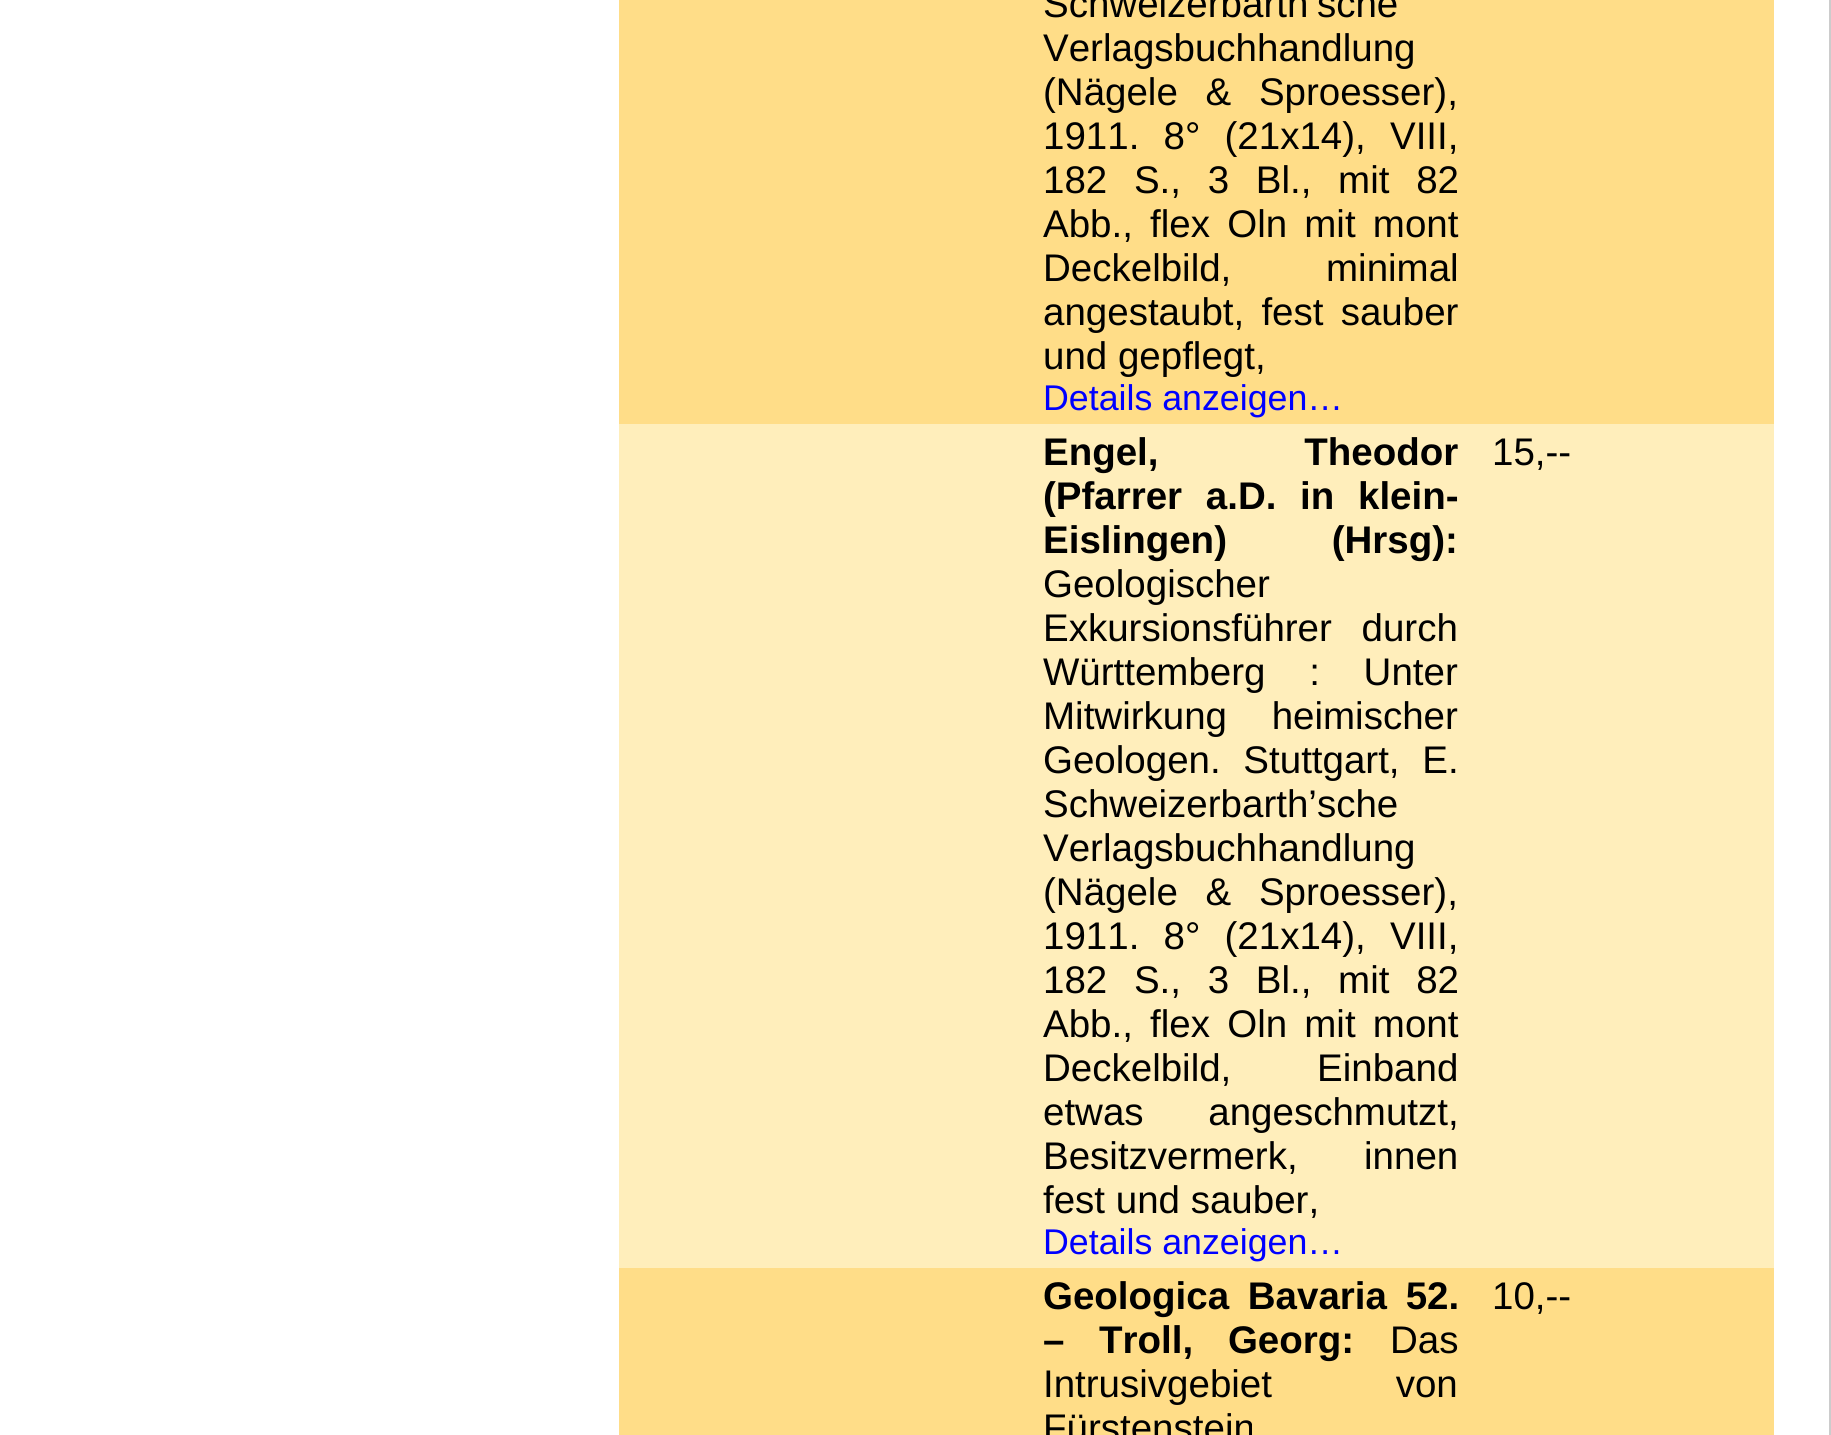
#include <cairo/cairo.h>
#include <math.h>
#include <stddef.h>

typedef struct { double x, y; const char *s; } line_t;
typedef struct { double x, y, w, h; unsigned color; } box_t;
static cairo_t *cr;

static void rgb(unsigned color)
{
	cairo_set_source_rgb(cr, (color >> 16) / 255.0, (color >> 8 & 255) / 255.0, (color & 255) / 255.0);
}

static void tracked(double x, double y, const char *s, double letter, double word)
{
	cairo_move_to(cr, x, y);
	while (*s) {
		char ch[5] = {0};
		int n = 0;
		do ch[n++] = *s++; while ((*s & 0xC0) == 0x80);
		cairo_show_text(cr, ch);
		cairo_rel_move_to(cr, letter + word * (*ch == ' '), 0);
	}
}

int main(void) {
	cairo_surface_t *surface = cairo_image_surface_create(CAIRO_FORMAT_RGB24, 1831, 1435);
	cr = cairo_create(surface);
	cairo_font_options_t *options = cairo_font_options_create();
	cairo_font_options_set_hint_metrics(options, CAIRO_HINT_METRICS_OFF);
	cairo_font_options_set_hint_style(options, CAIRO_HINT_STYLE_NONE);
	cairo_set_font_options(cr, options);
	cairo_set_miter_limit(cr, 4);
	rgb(0xffffff);
	cairo_paint(cr);
	{
		static const box_t items[] = {
			{1829, 0, 2, 1435, 0xcccccc},
			{619, 0, 1155, 424, 0xffdd88},
			{619, 424, 1155, 844, 0xffeebb},
			{619, 1268, 1155, 167, 0xffdd88},
		};
		for (size_t i = 0; i < sizeof items / sizeof *items; i++) {
			rgb(items[i].color);
			cairo_rectangle(cr, items[i].x, items[i].y, items[i].w, items[i].h);
			cairo_fill(cr);
		}
	}
	cairo_select_font_face(cr, "Liberation Sans", CAIRO_FONT_SLANT_NORMAL, CAIRO_FONT_WEIGHT_NORMAL);
	cairo_set_font_size(cr, 38.5);
	rgb(0x000000);
	cairo_move_to(cr, 1043, 17);
	cairo_show_text(cr, "Schweizerbarth’sche");
	cairo_move_to(cr, 1043, 61);
	cairo_show_text(cr, "Verlagsbuchhandlung");
	tracked(1043, 105, "(Nägele & Sproesser),", 0, 17);
	tracked(1043, 149, "1911. 8° (21x14), VIII,", 0, 13.5);
	tracked(1043, 193, "182 S., 3 Bl., mit 82", 0, 16);
	tracked(1043, 237, "Abb., flex Oln mit mont", 0, 6.5);
	tracked(1043, 281, "Deckelbild, minimal", 0, 84);
	tracked(1043, 325, "angestaubt, fest sauber", 0, 6.5);
	cairo_move_to(cr, 1043, 369);
	cairo_show_text(cr, "und gepflegt,");
	cairo_set_font_size(cr, 35.75);
	rgb(0x0000ff);
	cairo_move_to(cr, 1043, 410);
	cairo_show_text(cr, "Details anzeigen…");
	cairo_select_font_face(cr, "Liberation Sans", CAIRO_FONT_SLANT_NORMAL, CAIRO_FONT_WEIGHT_BOLD);
	cairo_set_font_size(cr, 38.5);
	rgb(0x000000);
	tracked(1043, 465, "Engel, Theodor", 0, 135);
	tracked(1043, 509, "(Pfarrer a.D. in klein-", 0, 13);
	tracked(1043, 553, "Eislingen) (Hrsg):", 0, 94);
	cairo_select_font_face(cr, "Liberation Sans", CAIRO_FONT_SLANT_NORMAL, CAIRO_FONT_WEIGHT_NORMAL);
	cairo_move_to(cr, 1043, 597);
	cairo_show_text(cr, "Geologischer");
	tracked(1043, 641, "Exkursionsführer durch", 0, 19);
	tracked(1043, 685, "Württemberg : Unter", 0, 33);
	tracked(1043, 729, "Mitwirkung heimischer", 0, 34);
	tracked(1043, 773, "Geologen. Stuttgart, E.", 0, 12);
	cairo_move_to(cr, 1043, 817);
	cairo_show_text(cr, "Schweizerbarth’sche");
	cairo_move_to(cr, 1043, 861);
	cairo_show_text(cr, "Verlagsbuchhandlung");
	tracked(1043, 905, "(Nägele & Sproesser),", 0, 17);
	tracked(1043, 949, "1911. 8° (21x14), VIII,", 0, 13.5);
	tracked(1043, 993, "182 S., 3 Bl., mit 82", 0, 16);
	tracked(1043, 1037, "Abb., flex Oln mit mont", 0, 6.5);
	tracked(1043, 1081, "Deckelbild, Einband", 0, 75);
	tracked(1043, 1125, "etwas angeschmutzt,", 0, 54);
	{
		static const line_t items[] = {
			{1043, 1169, "Besitzvermerk,"},
			{1364, 1169, "innen"},
			{1043, 1213, "fest und sauber,"},
		};
		for (size_t i = 0; i < sizeof items / sizeof *items; i++) {
			cairo_move_to(cr, items[i].x, items[i].y);
			cairo_show_text(cr, items[i].s);
		}
	}
	cairo_set_font_size(cr, 35.75);
	rgb(0x0000ff);
	cairo_move_to(cr, 1043, 1254);
	cairo_show_text(cr, "Details anzeigen…");
	cairo_set_font_size(cr, 38.5);
	rgb(0x000000);
	cairo_move_to(cr, 1492, 465);
	cairo_show_text(cr, "15,--");
	cairo_select_font_face(cr, "Liberation Sans", CAIRO_FONT_SLANT_NORMAL, CAIRO_FONT_WEIGHT_BOLD);
	tracked(1043, 1309, "Geologica Bavaria 52.", 0, 8);
	tracked(1043, 1353, "– Troll, Georg:", 0, 24);
	cairo_select_font_face(cr, "Liberation Sans", CAIRO_FONT_SLANT_NORMAL, CAIRO_FONT_WEIGHT_NORMAL);
	cairo_move_to(cr, 1390, 1353);
	cairo_show_text(cr, "Das");
	tracked(1043, 1397, "Intrusivgebiet von", 0, 113);
	cairo_move_to(cr, 1043, 1441);
	cairo_show_text(cr, "Fürstenstein");
	cairo_move_to(cr, 1492, 1309);
	cairo_show_text(cr, "10,--");
	cairo_surface_write_to_png(surface, "page.png");
	cairo_font_options_destroy(options);
	cairo_destroy(cr);
	cairo_surface_destroy(surface);
	return 0;
}
